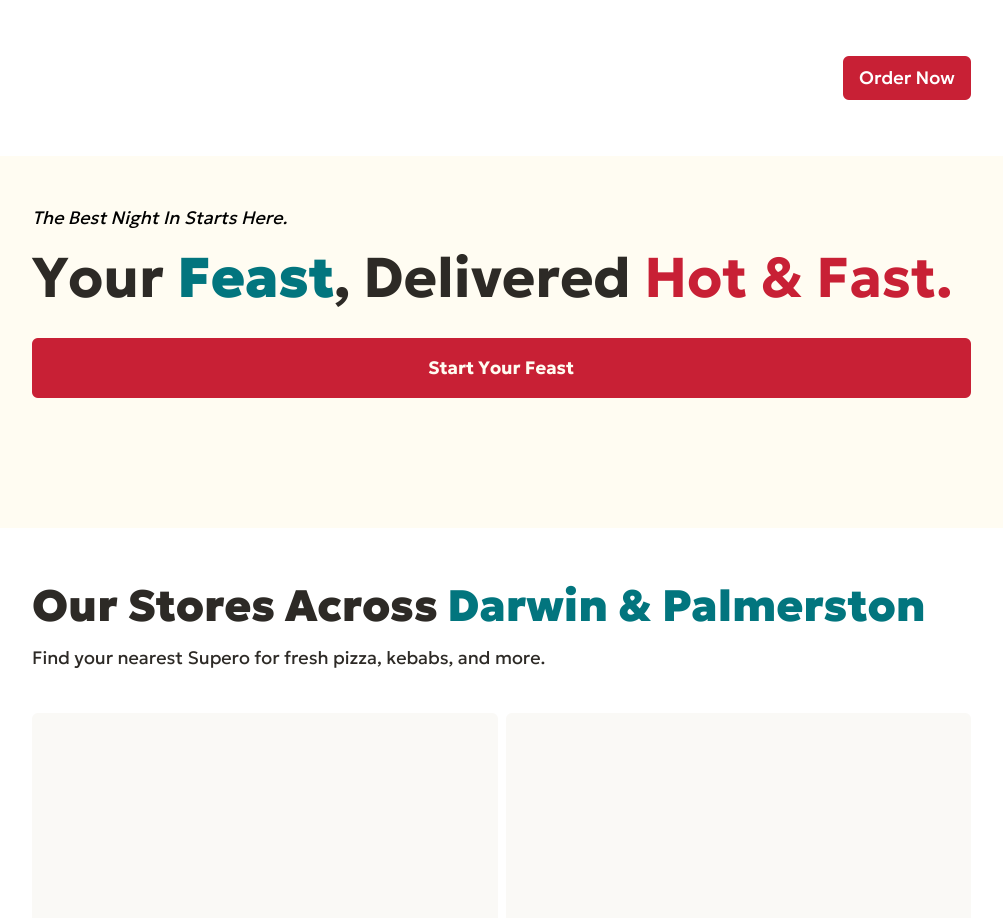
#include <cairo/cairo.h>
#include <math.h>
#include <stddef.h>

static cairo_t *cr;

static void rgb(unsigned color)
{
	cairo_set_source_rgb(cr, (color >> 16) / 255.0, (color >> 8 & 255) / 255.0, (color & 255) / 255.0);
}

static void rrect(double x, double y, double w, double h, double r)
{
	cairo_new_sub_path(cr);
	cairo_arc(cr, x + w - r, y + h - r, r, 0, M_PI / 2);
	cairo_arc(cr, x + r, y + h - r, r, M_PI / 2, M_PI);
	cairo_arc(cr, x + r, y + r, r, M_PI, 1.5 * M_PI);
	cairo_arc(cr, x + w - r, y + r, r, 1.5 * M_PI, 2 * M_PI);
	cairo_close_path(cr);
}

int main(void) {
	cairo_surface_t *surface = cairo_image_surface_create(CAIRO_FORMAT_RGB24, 1003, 918);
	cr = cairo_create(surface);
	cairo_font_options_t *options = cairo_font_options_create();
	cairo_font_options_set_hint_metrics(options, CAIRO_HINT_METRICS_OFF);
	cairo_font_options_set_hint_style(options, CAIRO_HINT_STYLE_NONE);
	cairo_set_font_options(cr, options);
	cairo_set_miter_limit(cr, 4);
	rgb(0xffffff);
	cairo_paint(cr);
	rgb(0xc82035);
	rrect(843, 56, 128, 44, 6);
	cairo_fill(cr);
	rgb(0xfffcf2);
	cairo_rectangle(cr, 0, 156, 1003, 372);
	cairo_fill(cr);
	rgb(0xc82035);
	rrect(32, 338, 939, 60, 6);
	cairo_fill(cr);
	rgb(0xfaf9f6);
	rrect(32, 713, 466, 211, 6);
	cairo_fill(cr);
	rrect(506, 713, 465, 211, 6);
	cairo_fill(cr);
	cairo_select_font_face(cr, "Geologica Medium", CAIRO_FONT_SLANT_NORMAL, CAIRO_FONT_WEIGHT_NORMAL);
	cairo_set_font_size(cr, 18);
	rgb(0xffffff);
	cairo_move_to(cr, 859, 84);
	cairo_show_text(cr, "Order Now");
	cairo_select_font_face(cr, "Geologica", CAIRO_FONT_SLANT_ITALIC, CAIRO_FONT_WEIGHT_NORMAL);
	rgb(0x000000);
	cairo_move_to(cr, 32, 224);
	cairo_show_text(cr, "The Best Night In Starts Here.");
	cairo_select_font_face(cr, "Geologica", CAIRO_FONT_SLANT_NORMAL, CAIRO_FONT_WEIGHT_BOLD);
	cairo_set_font_size(cr, 56);
	rgb(0x2d2a26);
	cairo_move_to(cr, 32, 297);
	cairo_show_text(cr, "Your");
	cairo_select_font_face(cr, "Geologica Black", CAIRO_FONT_SLANT_NORMAL, CAIRO_FONT_WEIGHT_NORMAL);
	rgb(0x02757e);
	cairo_move_to(cr, 177, 297);
	cairo_show_text(cr, "Feast");
	cairo_select_font_face(cr, "Geologica", CAIRO_FONT_SLANT_NORMAL, CAIRO_FONT_WEIGHT_BOLD);
	rgb(0x2d2a26);
	cairo_move_to(cr, 334, 297);
	cairo_show_text(cr, ", Delivered");
	rgb(0xc82035);
	cairo_move_to(cr, 644, 297);
	cairo_show_text(cr, "Hot & Fast.");
	cairo_set_font_size(cr, 18);
	rgb(0xfffcf2);
	cairo_move_to(cr, 428, 374);
	cairo_show_text(cr, "Start Your Feast");
	cairo_select_font_face(cr, "Geologica Black", CAIRO_FONT_SLANT_NORMAL, CAIRO_FONT_WEIGHT_NORMAL);
	cairo_set_font_size(cr, 44);
	rgb(0x2d2a26);
	cairo_move_to(cr, 32, 621);
	cairo_show_text(cr, "Our Stores Across");
	rgb(0x02757e);
	cairo_move_to(cr, 447, 621);
	cairo_show_text(cr, "Darwin & Palmerston");
	cairo_select_font_face(cr, "Geologica", CAIRO_FONT_SLANT_NORMAL, CAIRO_FONT_WEIGHT_NORMAL);
	cairo_set_font_size(cr, 18);
	rgb(0x2d2a26);
	cairo_move_to(cr, 32, 664);
	cairo_show_text(cr, "Find your nearest Supero for fresh pizza, kebabs, and more.");
	cairo_surface_write_to_png(surface, "page.png");
	cairo_font_options_destroy(options);
	cairo_destroy(cr);
	cairo_surface_destroy(surface);
	return 0;
}
